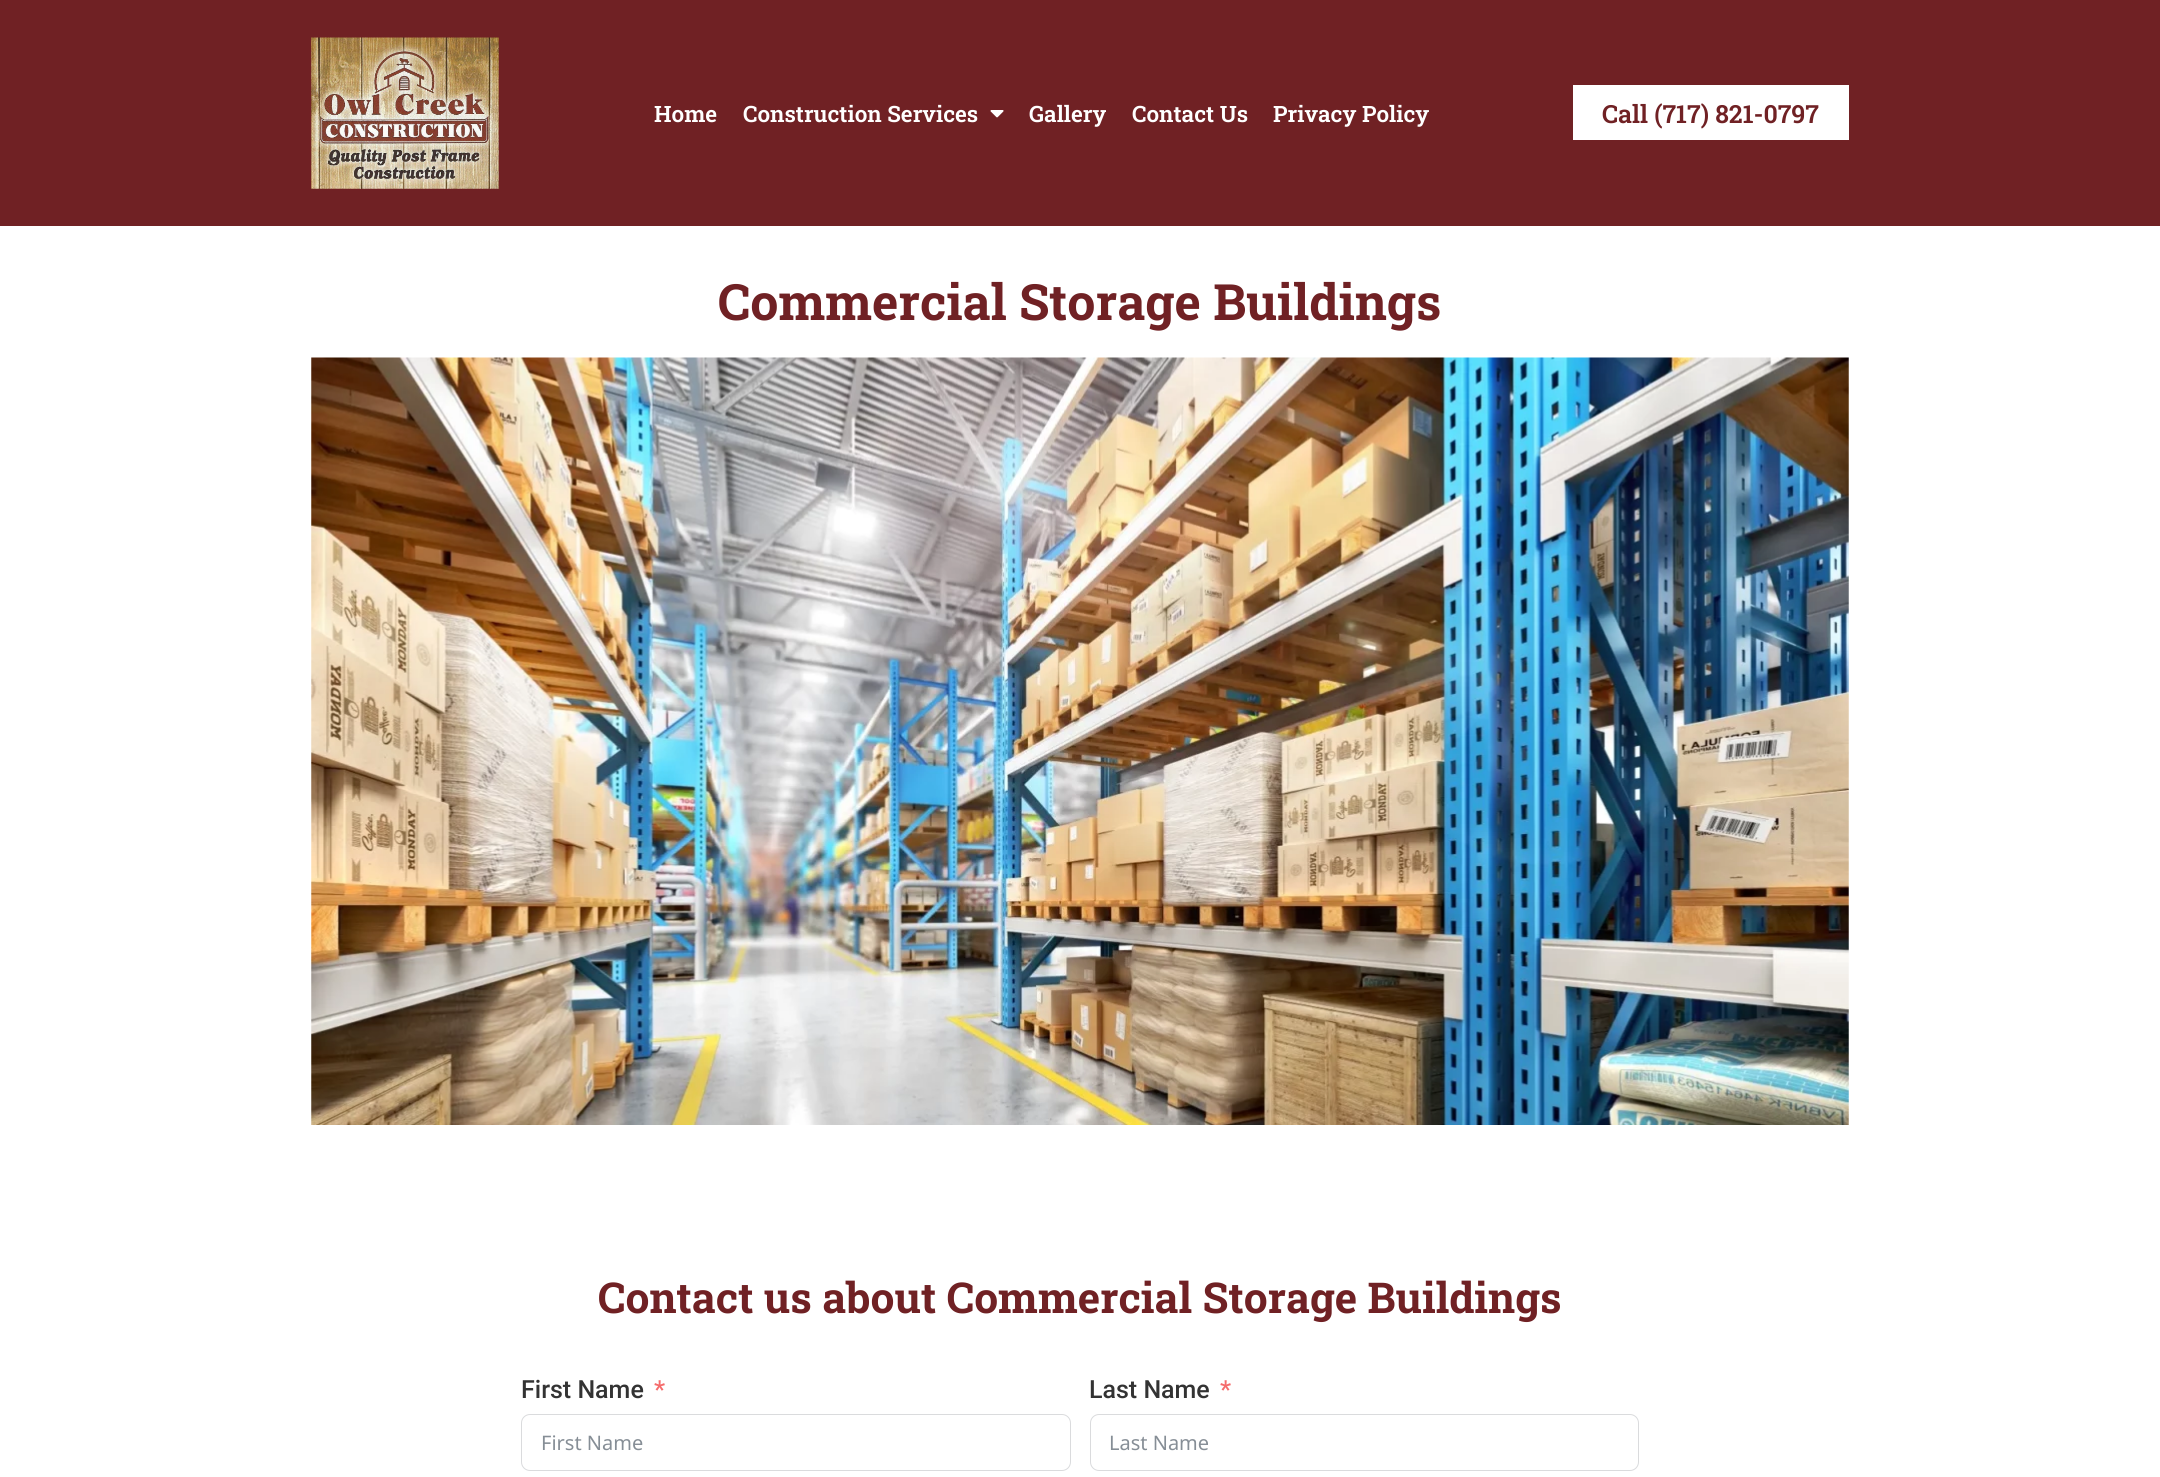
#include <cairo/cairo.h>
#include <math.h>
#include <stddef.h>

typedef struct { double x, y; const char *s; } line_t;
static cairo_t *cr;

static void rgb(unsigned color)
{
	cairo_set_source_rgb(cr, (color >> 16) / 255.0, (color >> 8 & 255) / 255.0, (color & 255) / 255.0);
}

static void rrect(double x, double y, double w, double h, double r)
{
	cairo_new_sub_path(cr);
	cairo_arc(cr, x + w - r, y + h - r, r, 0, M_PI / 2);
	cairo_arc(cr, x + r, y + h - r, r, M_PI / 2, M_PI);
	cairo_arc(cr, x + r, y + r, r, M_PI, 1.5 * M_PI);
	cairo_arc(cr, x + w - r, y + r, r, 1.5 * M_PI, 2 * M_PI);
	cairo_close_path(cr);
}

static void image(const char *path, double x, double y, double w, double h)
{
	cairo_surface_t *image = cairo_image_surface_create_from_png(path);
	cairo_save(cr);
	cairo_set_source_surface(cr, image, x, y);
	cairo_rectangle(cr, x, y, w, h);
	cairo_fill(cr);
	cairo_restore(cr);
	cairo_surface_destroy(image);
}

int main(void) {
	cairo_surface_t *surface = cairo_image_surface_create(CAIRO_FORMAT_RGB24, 2160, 1477);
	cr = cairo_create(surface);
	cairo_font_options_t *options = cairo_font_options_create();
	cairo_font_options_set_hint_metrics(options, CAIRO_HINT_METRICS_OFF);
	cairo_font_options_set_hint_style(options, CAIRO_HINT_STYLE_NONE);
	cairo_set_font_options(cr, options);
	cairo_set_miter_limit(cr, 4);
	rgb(0xffffff);
	cairo_paint(cr);
	rgb(0x702124);
	cairo_rectangle(cr, 0, 0, 2160, 226);
	cairo_fill(cr);
	image("img/1.png", 311, 37, 188, 152);
	image("img/2.png", 990, 110, 14, 8);
	rgb(0xffffff);
	cairo_rectangle(cr, 1573, 85, 276, 55);
	cairo_fill(cr);
	image("img/3.png", 311, 357, 1538, 768);
	rrect(521.5, 1414.5, 549, 56, 8.5);
	rgb(0xdadbdd);
	cairo_set_line_width(cr, 1);
	cairo_stroke(cr);
	rrect(1090.5, 1414.5, 548, 56, 8.5);
	cairo_stroke(cr);
	cairo_select_font_face(cr, "Roboto Slab SemiBold", CAIRO_FONT_SLANT_NORMAL, CAIRO_FONT_WEIGHT_NORMAL);
	cairo_set_font_size(cr, 22.5);
	rgb(0xffffff);
	{
		static const line_t items[] = {
			{654, 122, "Home"},
			{743, 122, "Construction Services"},
			{1029, 122, "Gallery"},
			{1132, 122, "Contact Us"},
			{1273, 122, "Privacy Policy"},
		};
		for (size_t i = 0; i < sizeof items / sizeof *items; i++) {
			cairo_move_to(cr, items[i].x, items[i].y);
			cairo_show_text(cr, items[i].s);
		}
	}
	cairo_set_font_size(cr, 25);
	rgb(0x702124);
	cairo_move_to(cr, 1602, 123);
	cairo_show_text(cr, "Call (717) 821-0797");
	cairo_select_font_face(cr, "Roboto Slab", CAIRO_FONT_SLANT_NORMAL, CAIRO_FONT_WEIGHT_BOLD);
	cairo_set_font_size(cr, 50);
	cairo_move_to(cr, 718, 320);
	cairo_show_text(cr, "Commercial Storage Buildings");
	cairo_set_font_size(cr, 42.5);
	cairo_move_to(cr, 598, 1313);
	cairo_show_text(cr, "Contact us about Commercial Storage Buildings");
	cairo_select_font_face(cr, "Roboto Medium", CAIRO_FONT_SLANT_NORMAL, CAIRO_FONT_WEIGHT_NORMAL);
	cairo_set_font_size(cr, 25);
	rgb(0x333333);
	cairo_move_to(cr, 521, 1398);
	cairo_show_text(cr, "First Name");
	rgb(0xf56c6c);
	cairo_move_to(cr, 654, 1398);
	cairo_show_text(cr, "*");
	cairo_select_font_face(cr, "Noto Sans", CAIRO_FONT_SLANT_NORMAL, CAIRO_FONT_WEIGHT_NORMAL);
	cairo_set_font_size(cr, 20);
	rgb(0x868e96);
	cairo_move_to(cr, 541, 1450);
	cairo_show_text(cr, "First Name");
	cairo_select_font_face(cr, "Roboto Medium", CAIRO_FONT_SLANT_NORMAL, CAIRO_FONT_WEIGHT_NORMAL);
	cairo_set_font_size(cr, 25);
	rgb(0x333333);
	cairo_move_to(cr, 1089, 1398);
	cairo_show_text(cr, "Last Name");
	rgb(0xf56c6c);
	cairo_move_to(cr, 1220, 1398);
	cairo_show_text(cr, "*");
	cairo_select_font_face(cr, "Noto Sans", CAIRO_FONT_SLANT_NORMAL, CAIRO_FONT_WEIGHT_NORMAL);
	cairo_set_font_size(cr, 20);
	rgb(0x868e96);
	cairo_move_to(cr, 1109, 1450);
	cairo_show_text(cr, "Last Name");
	cairo_surface_write_to_png(surface, "page.png");
	cairo_font_options_destroy(options);
	cairo_destroy(cr);
	cairo_surface_destroy(surface);
	return 0;
}
